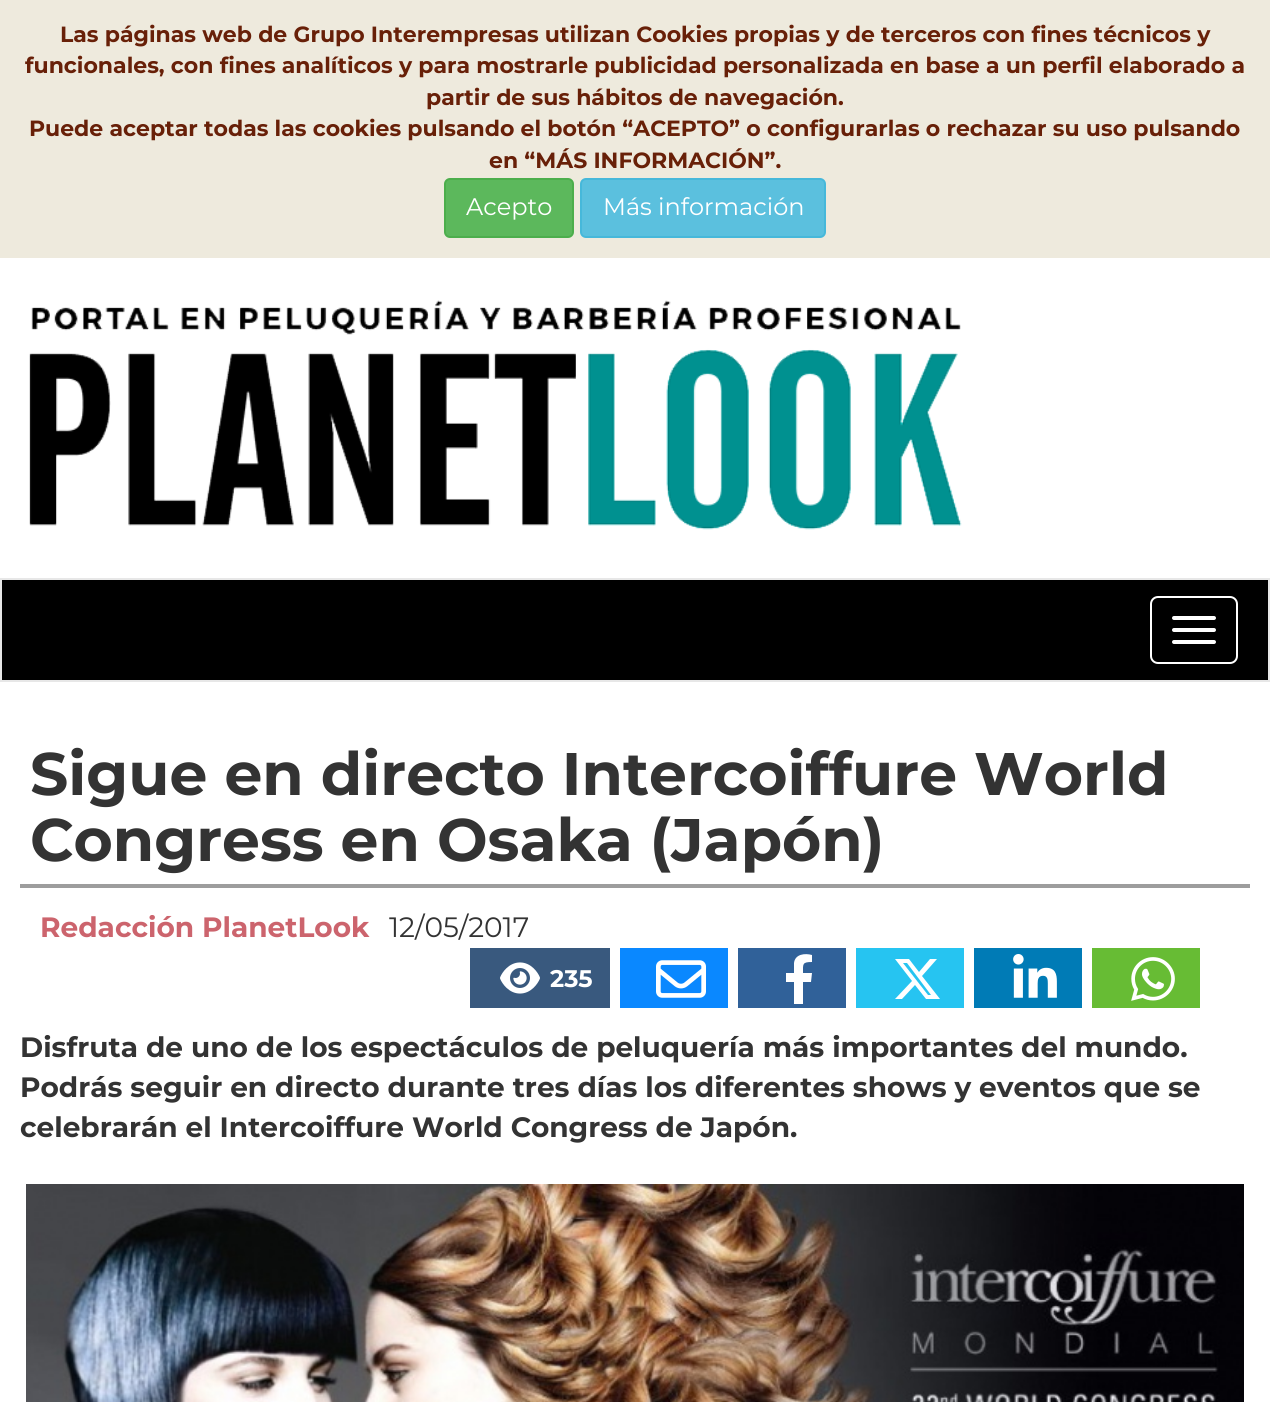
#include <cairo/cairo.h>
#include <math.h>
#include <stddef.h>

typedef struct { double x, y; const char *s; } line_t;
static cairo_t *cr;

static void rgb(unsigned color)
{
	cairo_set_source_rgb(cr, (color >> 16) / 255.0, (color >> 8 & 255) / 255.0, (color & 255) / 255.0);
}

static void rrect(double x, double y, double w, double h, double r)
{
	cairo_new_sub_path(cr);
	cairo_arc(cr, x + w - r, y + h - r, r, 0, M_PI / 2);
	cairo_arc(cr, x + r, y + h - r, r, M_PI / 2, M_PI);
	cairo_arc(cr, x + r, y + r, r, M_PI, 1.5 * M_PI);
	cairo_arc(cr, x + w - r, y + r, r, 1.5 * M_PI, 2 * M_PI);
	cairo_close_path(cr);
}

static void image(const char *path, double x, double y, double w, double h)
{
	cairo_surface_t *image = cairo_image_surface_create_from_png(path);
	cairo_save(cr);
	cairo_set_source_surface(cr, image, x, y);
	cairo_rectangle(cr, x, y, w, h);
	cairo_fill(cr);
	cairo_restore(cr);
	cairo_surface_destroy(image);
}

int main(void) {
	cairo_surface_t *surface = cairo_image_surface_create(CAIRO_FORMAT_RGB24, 1270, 1402);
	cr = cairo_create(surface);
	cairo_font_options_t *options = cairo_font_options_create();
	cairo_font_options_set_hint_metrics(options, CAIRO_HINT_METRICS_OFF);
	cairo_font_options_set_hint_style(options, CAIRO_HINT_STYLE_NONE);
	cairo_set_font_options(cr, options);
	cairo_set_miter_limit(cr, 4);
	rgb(0xffffff);
	cairo_paint(cr);
	rgb(0xeeeadd);
	cairo_rectangle(cr, 0, 0, 1270, 258);
	cairo_fill(cr);
	rgb(0x5cb85c);
	rrect(445, 179, 128, 58, 5);
	cairo_fill_preserve(cr);
	rgb(0x4cae4c);
	cairo_stroke(cr);
	rgb(0x5bc0de);
	rrect(581, 179, 244, 58, 5);
	cairo_fill_preserve(cr);
	rgb(0x46b8da);
	cairo_stroke(cr);
	image("img/1.png", 29, 300, 933, 230);
	rgb(0x000000);
	cairo_rectangle(cr, 1, 579, 1268, 102);
	cairo_fill_preserve(cr);
	rgb(0xe7e7e7);
	cairo_stroke(cr);
	rrect(1151, 597, 86, 66, 7);
	rgb(0xffffff);
	cairo_stroke(cr);
	rrect(1172, 616, 44, 4, 2);
	cairo_fill(cr);
	rrect(1172, 628, 44, 4, 2);
	cairo_fill(cr);
	rrect(1172, 640, 44, 4, 2);
	cairo_fill(cr);
	rgb(0x9d9d9d);
	cairo_rectangle(cr, 20, 884, 1230, 4);
	cairo_fill(cr);
	rgb(0x39597e);
	cairo_rectangle(cr, 470, 948, 140, 60);
	cairo_fill(cr);
	image("img/2.png", 500, 962, 40, 32);
	rgb(0x0a88ff);
	cairo_rectangle(cr, 620, 948, 108, 60);
	cairo_fill(cr);
	image("img/3.png", 656, 960, 50, 38);
	rgb(0x306199);
	cairo_rectangle(cr, 738, 948, 108, 60);
	cairo_fill(cr);
	rgb(0xffffff);
	cairo_new_path(cr);
	cairo_move_to(cr, 811, 982);
	cairo_line_to(cr, 812, 973);
	cairo_line_to(cr, 803, 973);
	cairo_curve_to(cr, 803, 964, 802, 962, 812, 962);
	cairo_line_to(cr, 812, 955);
	cairo_curve_to(cr, 805, 953, 795, 954, 794, 963);
	cairo_line_to(cr, 794, 973);
	cairo_line_to(cr, 786, 973);
	cairo_line_to(cr, 786, 982);
	cairo_line_to(cr, 794, 982);
	cairo_line_to(cr, 794, 1004);
	cairo_line_to(cr, 803, 1004);
	cairo_line_to(cr, 803, 982);
	cairo_close_path(cr);
	cairo_fill(cr);
	rgb(0x26c4f1);
	cairo_rectangle(cr, 856, 948, 108, 60);
	cairo_fill(cr);
	rgb(0xffffff);
	cairo_new_path(cr);
	cairo_move_to(cr, 930, 959);
	cairo_line_to(cr, 937, 959);
	cairo_line_to(cr, 922, 976);
	cairo_line_to(cr, 940, 999);
	cairo_line_to(cr, 926, 999);
	cairo_line_to(cr, 915, 985);
	cairo_line_to(cr, 902, 999);
	cairo_line_to(cr, 895, 999);
	cairo_line_to(cr, 912, 981);
	cairo_line_to(cr, 895, 959);
	cairo_line_to(cr, 909, 959);
	cairo_line_to(cr, 919, 972);
	cairo_close_path(cr);
	cairo_move_to(cr, 928, 995);
	cairo_line_to(cr, 931, 995);
	cairo_line_to(cr, 907, 963);
	cairo_line_to(cr, 903, 963);
	cairo_close_path(cr);
	cairo_fill(cr);
	rgb(0x007bb6);
	cairo_rectangle(cr, 974, 948, 108, 60);
	cairo_fill(cr);
	image("img/4.png", 1013, 954, 44, 44);
	rgb(0x67bc34);
	cairo_rectangle(cr, 1092, 948, 108, 60);
	cairo_fill(cr);
	image("img/5.png", 1131, 957, 44, 44);
	image("img/6.png", 26, 1184, 1218, 218);
	cairo_select_font_face(cr, "Montserrat", CAIRO_FONT_SLANT_NORMAL, CAIRO_FONT_WEIGHT_BOLD);
	cairo_set_font_size(cr, 22);
	rgb(0x682008);
	{
		static const line_t items[] = {
			{60, 42, "Las páginas web de Grupo Interempresas utilizan Cookies propias y de terceros con fines técnicos y"},
			{25, 73, "funcionales, con fines analíticos y para mostrarle publicidad personalizada en base a un perfil elaborado a"},
			{426, 105, "partir de sus hábitos de navegación."},
			{29, 136, "Puede aceptar todas las cookies pulsando el botón “ACEPTO” o configurarlas o rechazar su uso pulsando"},
			{489, 168, "en “MÁS INFORMACIÓN”."},
		};
		for (size_t i = 0; i < sizeof items / sizeof *items; i++) {
			cairo_move_to(cr, items[i].x, items[i].y);
			cairo_show_text(cr, items[i].s);
		}
	}
	cairo_select_font_face(cr, "Montserrat", CAIRO_FONT_SLANT_NORMAL, CAIRO_FONT_WEIGHT_NORMAL);
	cairo_set_font_size(cr, 24);
	rgb(0xffffff);
	cairo_move_to(cr, 466, 215);
	cairo_show_text(cr, "Acepto");
	cairo_move_to(cr, 603, 215);
	cairo_show_text(cr, "Más información");
	cairo_select_font_face(cr, "Montserrat", CAIRO_FONT_SLANT_NORMAL, CAIRO_FONT_WEIGHT_BOLD);
	cairo_set_font_size(cr, 60);
	rgb(0x333333);
	cairo_move_to(cr, 30, 795);
	cairo_show_text(cr, "Sigue en directo Intercoiffure World");
	cairo_move_to(cr, 30, 861);
	cairo_show_text(cr, "Congress en Osaka (Japón)");
	cairo_set_font_size(cr, 28);
	rgb(0xcc646d);
	cairo_move_to(cr, 40, 937);
	cairo_show_text(cr, "Redacción PlanetLook");
	cairo_select_font_face(cr, "Montserrat", CAIRO_FONT_SLANT_NORMAL, CAIRO_FONT_WEIGHT_NORMAL);
	rgb(0x333333);
	cairo_move_to(cr, 389, 937);
	cairo_show_text(cr, "12/05/2017");
	cairo_select_font_face(cr, "Montserrat", CAIRO_FONT_SLANT_NORMAL, CAIRO_FONT_WEIGHT_BOLD);
	cairo_set_font_size(cr, 24);
	rgb(0xffffff);
	cairo_move_to(cr, 550, 987);
	cairo_show_text(cr, "235");
	cairo_set_font_size(cr, 28);
	rgb(0x333333);
	{
		static const line_t items[] = {
			{20, 1057, "Disfruta de uno de los espectáculos de peluquería más importantes del mundo."},
			{20, 1097, "Podrás seguir en directo durante tres días los diferentes shows y eventos que se"},
			{20, 1137, "celebrarán el Intercoiffure World Congress de Japón."},
		};
		for (size_t i = 0; i < sizeof items / sizeof *items; i++) {
			cairo_move_to(cr, items[i].x, items[i].y);
			cairo_show_text(cr, items[i].s);
		}
	}
	cairo_surface_write_to_png(surface, "page.png");
	cairo_font_options_destroy(options);
	cairo_destroy(cr);
	cairo_surface_destroy(surface);
	return 0;
}
